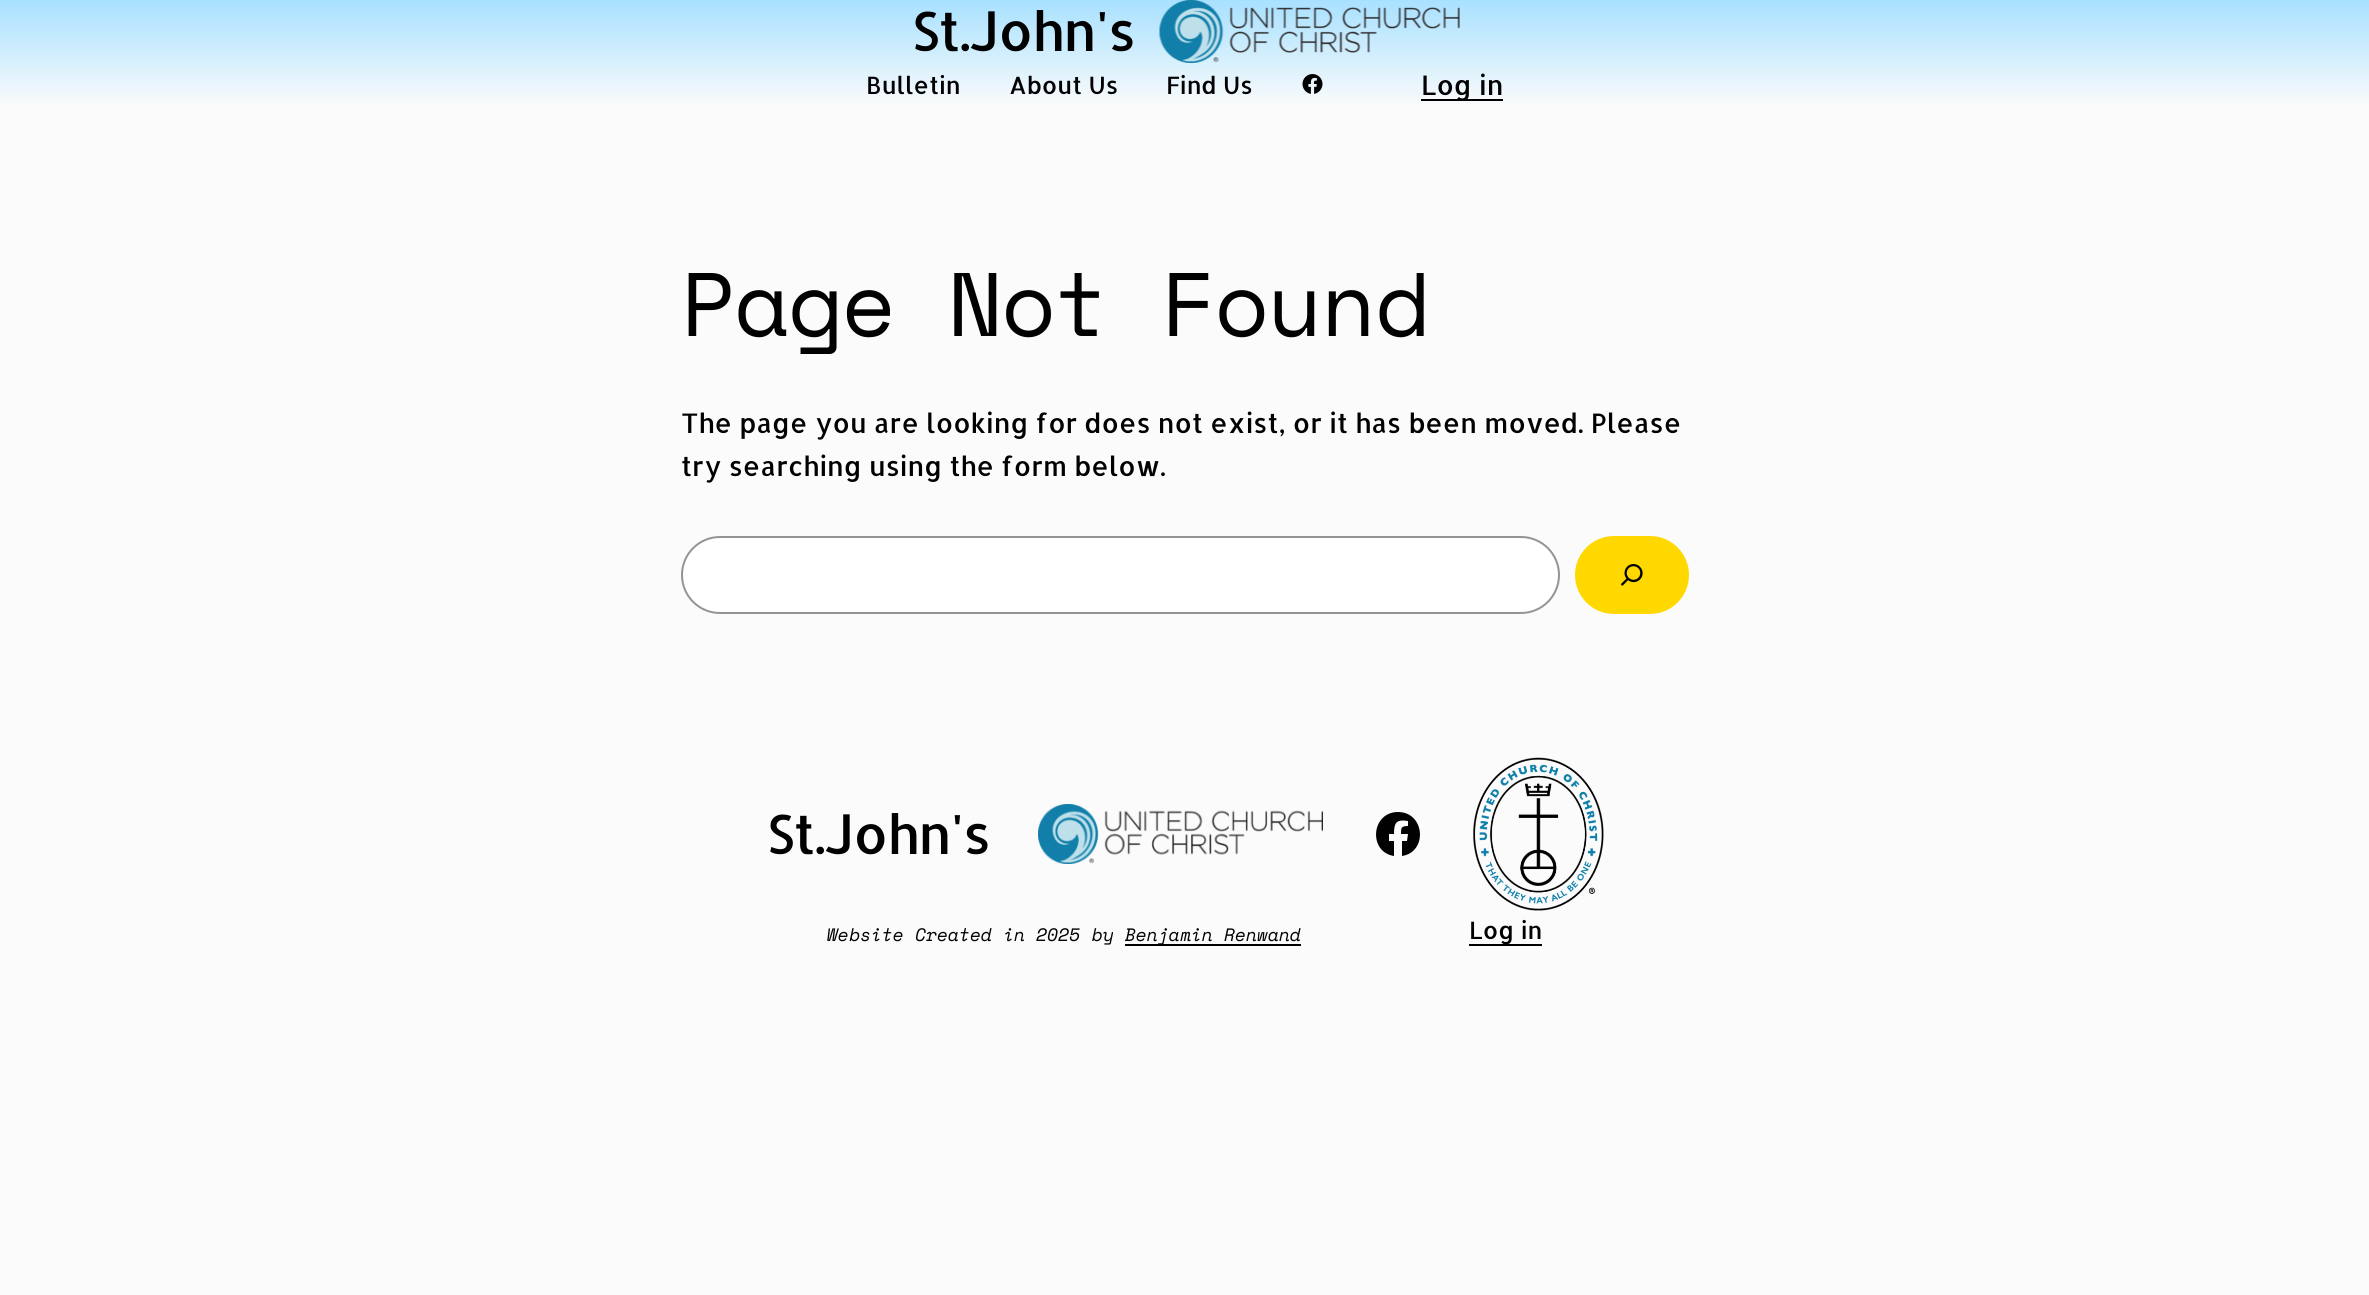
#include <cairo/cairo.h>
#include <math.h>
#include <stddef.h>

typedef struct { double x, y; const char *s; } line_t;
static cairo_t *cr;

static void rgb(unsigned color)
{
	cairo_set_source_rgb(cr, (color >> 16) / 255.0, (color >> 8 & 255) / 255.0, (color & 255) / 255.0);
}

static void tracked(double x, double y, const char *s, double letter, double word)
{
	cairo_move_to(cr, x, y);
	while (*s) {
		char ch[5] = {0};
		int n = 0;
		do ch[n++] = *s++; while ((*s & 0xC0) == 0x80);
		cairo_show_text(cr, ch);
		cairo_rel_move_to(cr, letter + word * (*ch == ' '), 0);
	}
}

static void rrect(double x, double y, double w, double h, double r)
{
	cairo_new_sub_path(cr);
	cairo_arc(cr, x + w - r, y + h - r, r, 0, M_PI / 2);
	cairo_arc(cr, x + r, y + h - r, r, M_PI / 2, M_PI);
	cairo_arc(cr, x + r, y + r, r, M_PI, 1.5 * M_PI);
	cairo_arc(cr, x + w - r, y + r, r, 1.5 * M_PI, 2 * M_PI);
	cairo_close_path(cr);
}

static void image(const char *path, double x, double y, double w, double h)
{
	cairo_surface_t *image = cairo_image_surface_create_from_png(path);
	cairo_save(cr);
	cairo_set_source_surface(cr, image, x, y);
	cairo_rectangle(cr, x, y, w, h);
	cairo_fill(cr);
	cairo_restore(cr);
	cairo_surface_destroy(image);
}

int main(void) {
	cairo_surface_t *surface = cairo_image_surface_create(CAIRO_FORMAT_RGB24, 2369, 1295);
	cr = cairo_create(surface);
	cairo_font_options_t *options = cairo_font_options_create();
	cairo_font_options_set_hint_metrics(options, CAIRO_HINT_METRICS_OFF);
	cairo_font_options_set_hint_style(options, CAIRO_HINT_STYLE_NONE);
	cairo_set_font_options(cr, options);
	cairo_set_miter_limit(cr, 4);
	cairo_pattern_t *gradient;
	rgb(0xfbfbfb);
	cairo_paint(cr);
	gradient = cairo_pattern_create_linear(1185, 0, 1185, 107);
	cairo_pattern_add_color_stop_rgba(gradient, 0, 0.659, 0.882, 1, 1);
	cairo_pattern_add_color_stop_rgba(gradient, 1, 0.984, 0.984, 0.984, 1);
	cairo_set_source(cr, gradient);
	cairo_pattern_destroy(gradient);
	cairo_rectangle(cr, 0, 0, 2369, 104);
	cairo_fill(cr);
	image("img/1.png", 1159, 0, 301, 63);
	image("img/2.png", 1302, 74, 21, 20);
	rgb(0x010101);
	cairo_rectangle(cr, 1421, 99, 82, 2);
	cairo_fill(cr);
	rgb(0xffffff);
	rrect(682, 537, 877, 76, 38);
	cairo_fill_preserve(cr);
	rgb(0x949494);
	cairo_stroke(cr);
	rgb(0xffd800);
	rrect(1575, 536, 114, 78, 39);
	cairo_fill(cr);
	image("img/3.png", 1620, 564, 23, 22);
	image("img/4.png", 1038, 804, 285, 60);
	rgb(0x010101);
	cairo_new_path(cr);
	cairo_move_to(cr, 1398, 812);
	cairo_curve_to(cr, 1371, 812, 1368, 852, 1394, 856);
	cairo_line_to(cr, 1394, 841);
	cairo_line_to(cr, 1389, 841);
	cairo_line_to(cr, 1389, 834);
	cairo_line_to(cr, 1394, 834);
	cairo_curve_to(cr, 1394, 823, 1396, 819, 1408, 821);
	cairo_line_to(cr, 1408, 826);
	cairo_curve_to(cr, 1401, 826, 1401, 828, 1401, 834);
	cairo_line_to(cr, 1408, 834);
	cairo_line_to(cr, 1407, 841);
	cairo_line_to(cr, 1402, 841);
	cairo_line_to(cr, 1402, 856);
	cairo_curve_to(cr, 1428, 852, 1425, 812, 1398, 812);
	cairo_close_path(cr);
	cairo_fill(cr);
	image("img/5.png", 1473, 757, 131, 154);
	cairo_rectangle(cr, 1125, 944, 176, 2);
	cairo_fill(cr);
	cairo_rectangle(cr, 1469, 944, 73, 2);
	cairo_fill(cr);
	cairo_select_font_face(cr, "Allerta", CAIRO_FONT_SLANT_NORMAL, CAIRO_FONT_WEIGHT_NORMAL);
	cairo_set_font_size(cr, 54);
	tracked(911, 51, "St.John's", -1, 0);
	cairo_set_font_size(cr, 24);
	{
		static const line_t items[] = {
			{866, 94, "Bulletin"},
			{1009, 94, "About Us"},
			{1166, 94, "Find Us"},
		};
		for (size_t i = 0; i < sizeof items / sizeof *items; i++) {
			cairo_move_to(cr, items[i].x, items[i].y);
			cairo_show_text(cr, items[i].s);
		}
	}
	cairo_set_font_size(cr, 27);
	cairo_move_to(cr, 1421, 95);
	cairo_show_text(cr, "Log in");
	cairo_select_font_face(cr, "Space Mono", CAIRO_FONT_SLANT_NORMAL, CAIRO_FONT_WEIGHT_NORMAL);
	cairo_set_font_size(cr, 90);
	tracked(681, 336, "Page Not Found", -1.75, 0);
	cairo_select_font_face(cr, "Allerta", CAIRO_FONT_SLANT_NORMAL, CAIRO_FONT_WEIGHT_NORMAL);
	cairo_set_font_size(cr, 27);
	cairo_move_to(cr, 681, 433);
	cairo_show_text(cr, "The page you are looking for does not exist, or it has been moved. Please");
	cairo_move_to(cr, 681, 476);
	cairo_show_text(cr, "try searching using the form below.");
	cairo_set_font_size(cr, 54);
	tracked(766, 854, "St.John's", -1, 0);
	cairo_select_font_face(cr, "Space Mono", CAIRO_FONT_SLANT_ITALIC, CAIRO_FONT_WEIGHT_NORMAL);
	cairo_set_font_size(cr, 18);
	cairo_move_to(cr, 827, 941);
	cairo_show_text(cr, "Website Created in 2025 by");
	cairo_move_to(cr, 1125, 941);
	cairo_show_text(cr, "Benjamin Renwand");
	cairo_select_font_face(cr, "Allerta", CAIRO_FONT_SLANT_NORMAL, CAIRO_FONT_WEIGHT_NORMAL);
	cairo_set_font_size(cr, 24);
	cairo_move_to(cr, 1469, 939);
	cairo_show_text(cr, "Log in");
	cairo_surface_write_to_png(surface, "page.png");
	cairo_font_options_destroy(options);
	cairo_destroy(cr);
	cairo_surface_destroy(surface);
	return 0;
}
